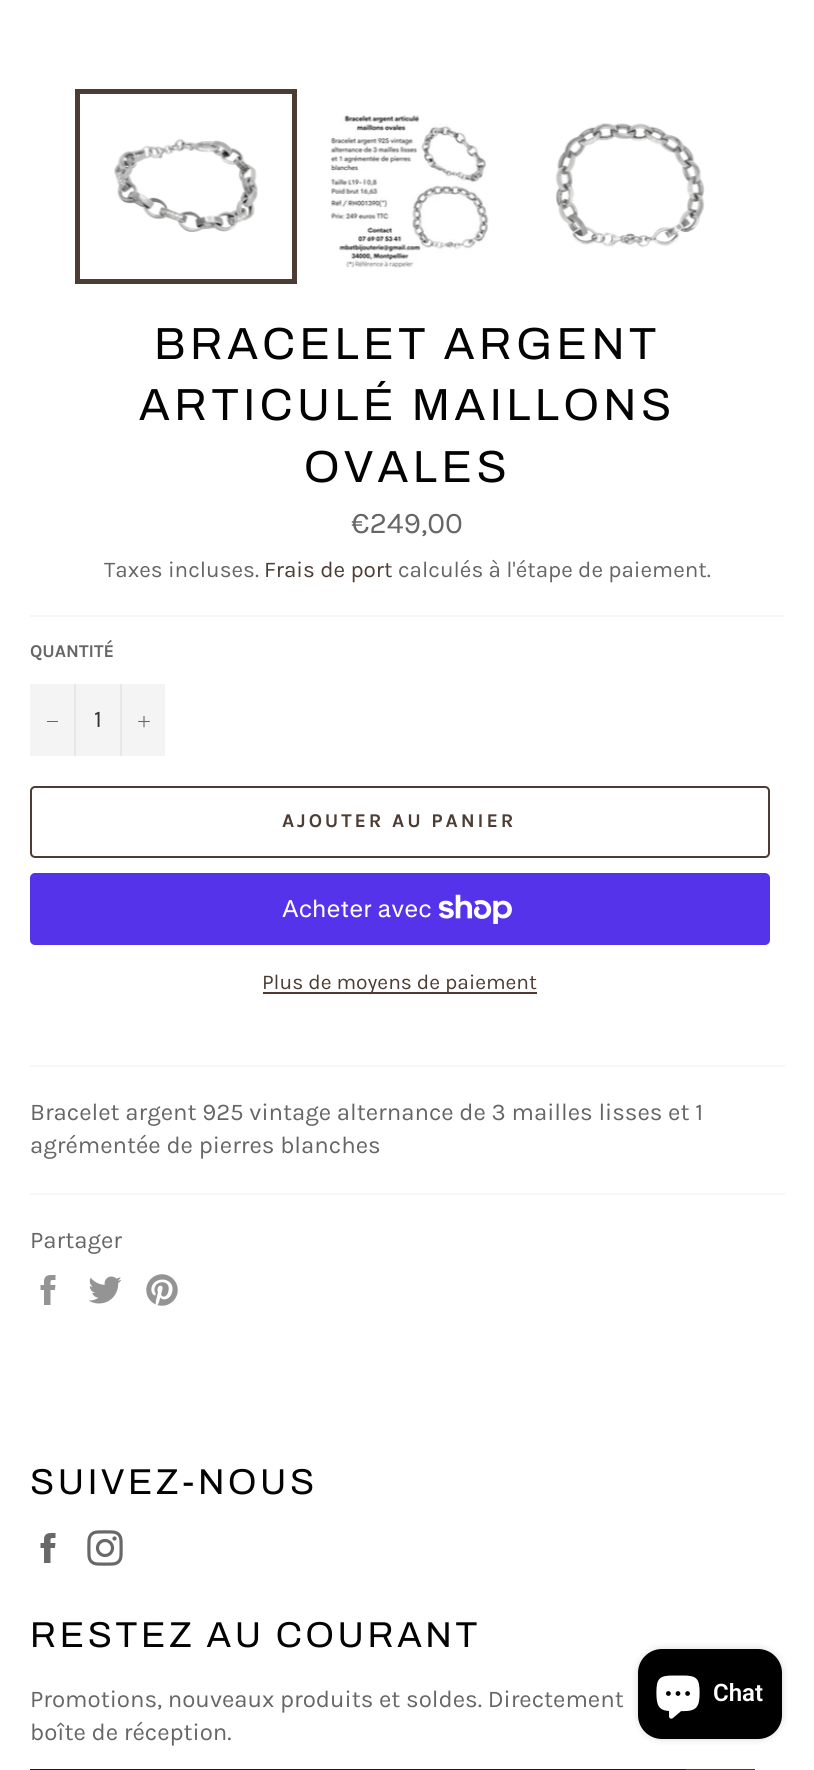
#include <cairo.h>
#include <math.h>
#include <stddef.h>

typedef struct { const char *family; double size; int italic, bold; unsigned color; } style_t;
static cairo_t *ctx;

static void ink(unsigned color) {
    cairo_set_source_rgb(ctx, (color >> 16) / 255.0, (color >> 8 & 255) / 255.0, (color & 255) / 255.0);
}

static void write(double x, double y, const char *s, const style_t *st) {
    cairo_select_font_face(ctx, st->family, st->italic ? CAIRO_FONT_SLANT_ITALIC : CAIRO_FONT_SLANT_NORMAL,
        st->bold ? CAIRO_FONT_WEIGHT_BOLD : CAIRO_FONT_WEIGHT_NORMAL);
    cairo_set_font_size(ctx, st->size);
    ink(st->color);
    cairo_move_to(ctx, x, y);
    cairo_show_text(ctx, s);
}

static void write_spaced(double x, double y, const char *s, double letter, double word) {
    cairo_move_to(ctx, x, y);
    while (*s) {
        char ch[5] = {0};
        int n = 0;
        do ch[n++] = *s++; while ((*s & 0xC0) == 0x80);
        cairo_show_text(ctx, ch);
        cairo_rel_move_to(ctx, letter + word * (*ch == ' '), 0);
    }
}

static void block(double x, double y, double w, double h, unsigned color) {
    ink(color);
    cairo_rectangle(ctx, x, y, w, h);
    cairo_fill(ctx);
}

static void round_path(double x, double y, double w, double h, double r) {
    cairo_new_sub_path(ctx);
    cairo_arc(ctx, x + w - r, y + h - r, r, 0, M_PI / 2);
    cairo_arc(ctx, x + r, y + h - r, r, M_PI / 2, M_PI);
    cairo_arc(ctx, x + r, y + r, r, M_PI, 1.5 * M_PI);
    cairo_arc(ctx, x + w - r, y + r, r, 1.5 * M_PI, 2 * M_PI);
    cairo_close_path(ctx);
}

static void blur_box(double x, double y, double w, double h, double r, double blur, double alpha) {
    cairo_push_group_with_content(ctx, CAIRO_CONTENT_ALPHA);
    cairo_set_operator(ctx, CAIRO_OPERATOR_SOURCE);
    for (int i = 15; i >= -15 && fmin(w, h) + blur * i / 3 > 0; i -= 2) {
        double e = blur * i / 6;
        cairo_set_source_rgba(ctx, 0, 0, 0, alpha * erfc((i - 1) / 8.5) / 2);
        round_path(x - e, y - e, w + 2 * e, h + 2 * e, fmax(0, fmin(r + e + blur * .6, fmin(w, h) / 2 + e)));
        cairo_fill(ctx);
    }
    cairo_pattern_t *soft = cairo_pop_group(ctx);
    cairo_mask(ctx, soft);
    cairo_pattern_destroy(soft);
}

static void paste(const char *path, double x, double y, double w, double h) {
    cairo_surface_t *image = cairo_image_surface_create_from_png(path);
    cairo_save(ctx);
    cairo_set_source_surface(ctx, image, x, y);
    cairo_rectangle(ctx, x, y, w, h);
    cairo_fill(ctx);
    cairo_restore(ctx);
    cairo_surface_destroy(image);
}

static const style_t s1 = {"Karla", 30, 0, 0, 0x666666};
static const style_t s2 = {"Karla", 22.5, 0, 0, 0x666666};
static const style_t s3 = {"Karla", 22.5, 0, 0, 0x4d3c33};
static const style_t s4 = {"Karla", 18, 0, 1, 0x666666};
static const style_t s5 = {"Karla", 24, 0, 0, 0x333333};
static const style_t s6 = {"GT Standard", 24, 0, 0, 0xffffff};
static const style_t s7 = {"Karla", 21, 0, 0, 0x4d3c33};
static const style_t s8 = {"Karla", 24, 0, 0, 0x666666};
static const style_t s9 = {"Roboto SemiBold", 24, 0, 0, 0xffffff};

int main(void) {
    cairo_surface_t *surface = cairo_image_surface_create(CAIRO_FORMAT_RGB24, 814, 1770);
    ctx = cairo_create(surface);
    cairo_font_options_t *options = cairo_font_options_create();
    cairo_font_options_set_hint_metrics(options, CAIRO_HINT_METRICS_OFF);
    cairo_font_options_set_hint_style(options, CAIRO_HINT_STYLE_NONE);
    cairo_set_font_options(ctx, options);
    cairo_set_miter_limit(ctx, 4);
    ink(0xffffff);
    cairo_paint(ctx);
    paste("pic1.png", 114, 139, 144, 93);
    cairo_rectangle(ctx, 77.5, 91.5, 217, 190);
    ink(0x4d3c33);
    cairo_set_line_width(ctx, 5);
    cairo_stroke(ctx);
    paste("pic2.png", 330, 115, 159, 153);
    paste("pic3.png", 555, 123, 150, 125);
    cairo_select_font_face(ctx, "Archivo", CAIRO_FONT_SLANT_NORMAL, CAIRO_FONT_WEIGHT_NORMAL);
    cairo_set_font_size(ctx, 45);
    ink(0x030303);
    write_spaced(154, 359, "BRACELET ARGENT", 4.5, 0);
    write_spaced(139, 420, "ARTICULÉ MAILLONS", 4.5, 0);
    write_spaced(304, 482, "OVALES", 4.5, 0);
    write(351, 533, "€249,00", &s1);
    write(104, 577, "Taxes incluses.", &s2);
    write(264, 577, "Frais de port", &s3);
    write(398, 577, "calculés à l'étape de paiement.", &s2);
    block(30, 615, 755, 2, 0xf7f7f7);
    write(30, 657, "QUANTITÉ", &s4);
    block(30, 684, 135, 72, 0xf4f4f4);
    block(74, 684, 2, 72, 0xe7e7e7);
    block(47, 721, 11, 1, 0x666666);
    write(94, 727, "1", &s5);
    block(120, 684, 2, 72, 0xe7e7e7);
    paste("pic4.png", 138, 716, 12, 12);
    round_path(31, 787, 738, 70, 4);
    ink(0x4d3c33);
    cairo_set_line_width(ctx, 2);
    cairo_stroke(ctx);
    cairo_select_font_face(ctx, "Karla", CAIRO_FONT_SLANT_NORMAL, CAIRO_FONT_WEIGHT_BOLD);
    cairo_set_font_size(ctx, 19.5);
    write_spaced(282, 827, "AJOUTER AU PANIER", 2.9, 0);
    ink(0x5433eb);
    round_path(30, 873, 740, 72, 5);
    cairo_fill(ctx);
    write(282, 917, "Acheter avec", &s6);
    paste("pic5.png", 438, 894, 74, 30);
    block(263, 992, 274, 2, 0x4d3c33);
    write(262, 989, "Plus de moyens de paiement", &s7);
    block(30, 1065, 755, 2, 0xf7f7f7);
    write(30, 1120, "Bracelet argent 925 vintage alternance de 3 mailles lisses et 1", &s8);
    write(30, 1153, "agrémentée de pierres blanches", &s8);
    block(30, 1193, 755, 2, 0xf7f7f7);
    write(30, 1248, "Partager", &s8);
    paste("pic6.png", 40, 1275, 16, 30);
    paste("pic7.png", 88, 1276, 34, 28);
    paste("pic8.png", 146, 1274, 32, 32);
    cairo_select_font_face(ctx, "Archivo", CAIRO_FONT_SLANT_NORMAL, CAIRO_FONT_WEIGHT_NORMAL);
    cairo_set_font_size(ctx, 36);
    ink(0x030303);
    write_spaced(30, 1494, "SUIVEZ-NOUS", 3.6, 0);
    paste("pic9.png", 40, 1533, 16, 30);
    paste("pic10.png", 87, 1530, 36, 36);
    write_spaced(30, 1647, "RESTEZ AU COURANT", 3.6, 0);
    write(30, 1707, "Promotions, nouveaux produits et soldes. Directement", &s8);
    write(30, 1740, "boîte de réception.", &s8);
    block(30, 1769, 656, 1, 0x1a1a1a);
    block(686, 1769, 69, 1, 0x4d3c33);
    ink(0x000000);
    blur_box(638, 1649, 144, 90, 24, 4, 0.15);
    ink(0x000000);
    round_path(638, 1649, 144, 90, 24);
    cairo_fill(ctx);
    paste("pic11.png", 656, 1675, 44, 44);
    write(713, 1701, "Chat", &s9);
    cairo_surface_write_to_png(surface, "screenshot.png");
    cairo_font_options_destroy(options);
    cairo_destroy(ctx);
    cairo_surface_destroy(surface);
    return 0;
}
